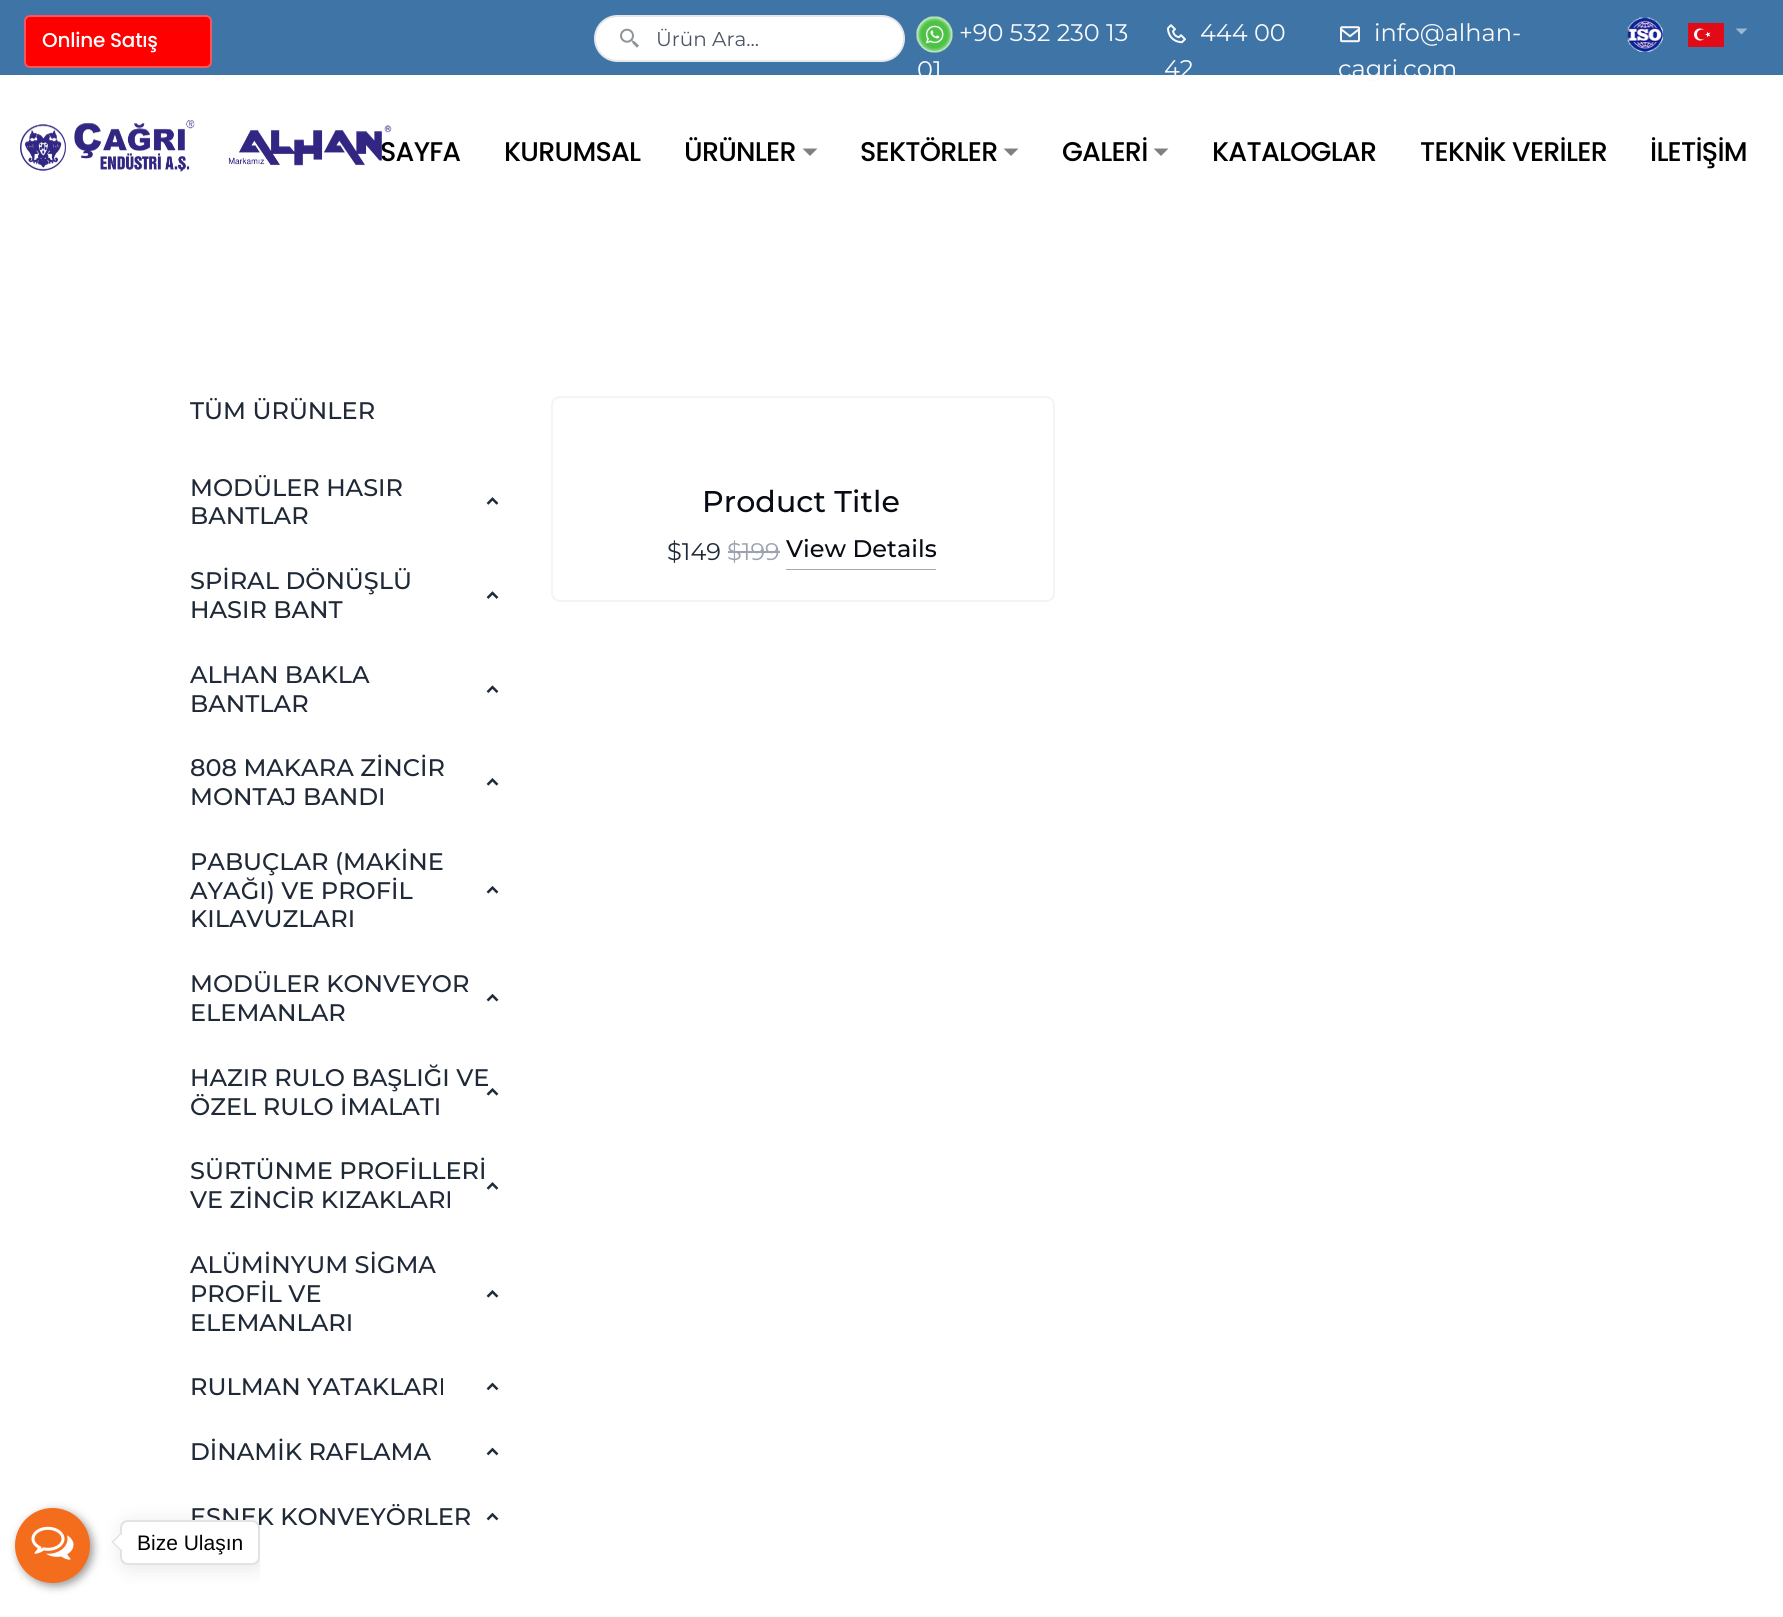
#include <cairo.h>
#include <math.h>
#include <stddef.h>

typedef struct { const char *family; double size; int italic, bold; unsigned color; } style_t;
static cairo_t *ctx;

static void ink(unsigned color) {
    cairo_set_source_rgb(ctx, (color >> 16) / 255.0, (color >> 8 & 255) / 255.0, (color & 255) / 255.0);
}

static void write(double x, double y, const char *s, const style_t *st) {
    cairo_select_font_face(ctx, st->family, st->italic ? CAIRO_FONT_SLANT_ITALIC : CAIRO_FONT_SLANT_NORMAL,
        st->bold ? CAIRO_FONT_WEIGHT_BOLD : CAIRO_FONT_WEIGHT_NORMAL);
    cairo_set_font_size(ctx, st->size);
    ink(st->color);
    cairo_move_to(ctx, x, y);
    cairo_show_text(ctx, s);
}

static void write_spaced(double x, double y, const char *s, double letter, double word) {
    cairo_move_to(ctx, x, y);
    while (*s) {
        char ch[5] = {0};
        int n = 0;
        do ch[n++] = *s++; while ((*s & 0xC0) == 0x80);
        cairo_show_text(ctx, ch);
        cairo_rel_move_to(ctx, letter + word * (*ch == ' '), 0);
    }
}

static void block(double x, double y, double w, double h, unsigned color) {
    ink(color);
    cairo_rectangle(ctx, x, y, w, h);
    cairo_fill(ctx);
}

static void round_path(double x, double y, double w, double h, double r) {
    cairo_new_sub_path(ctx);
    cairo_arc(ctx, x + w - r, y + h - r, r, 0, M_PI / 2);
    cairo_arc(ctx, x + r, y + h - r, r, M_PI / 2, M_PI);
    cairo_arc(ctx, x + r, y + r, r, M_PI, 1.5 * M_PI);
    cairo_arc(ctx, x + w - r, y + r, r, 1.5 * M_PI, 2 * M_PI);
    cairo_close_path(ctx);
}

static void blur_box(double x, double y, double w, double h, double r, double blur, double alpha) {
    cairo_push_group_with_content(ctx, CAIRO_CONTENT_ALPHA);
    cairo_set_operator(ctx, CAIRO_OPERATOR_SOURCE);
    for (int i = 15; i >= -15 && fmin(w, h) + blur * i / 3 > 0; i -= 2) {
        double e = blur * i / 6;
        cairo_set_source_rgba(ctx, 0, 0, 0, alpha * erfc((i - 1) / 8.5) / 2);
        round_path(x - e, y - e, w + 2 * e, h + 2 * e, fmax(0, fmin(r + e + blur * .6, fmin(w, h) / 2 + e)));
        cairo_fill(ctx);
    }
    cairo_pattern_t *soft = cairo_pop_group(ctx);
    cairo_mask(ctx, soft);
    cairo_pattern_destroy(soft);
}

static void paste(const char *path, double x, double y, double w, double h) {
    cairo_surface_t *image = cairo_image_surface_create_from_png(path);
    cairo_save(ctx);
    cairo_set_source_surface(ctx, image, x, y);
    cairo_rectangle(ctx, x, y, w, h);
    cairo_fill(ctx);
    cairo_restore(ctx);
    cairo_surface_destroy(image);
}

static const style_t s1 = {"Montserrat", 20, 0, 0, 0x4b5563};
static const style_t s2 = {"Montserrat", 24, 0, 0, 0xf9fafb};
static const style_t s3 = {"Montserrat Medium", 24, 0, 0, 0x1f2937};
static const style_t s4 = {"Montserrat", 24, 0, 0, 0x1f2937};
static const style_t s5 = {"Montserrat", 24, 0, 0, 0x9ca3af};
static const style_t s6 = {"Montserrat Medium", 24, 0, 0, 0x080b13};
static const style_t s7 = {"Liberation Sans", 21, 0, 0, 0x000000};

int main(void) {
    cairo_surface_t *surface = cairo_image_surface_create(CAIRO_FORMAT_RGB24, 1783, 1617);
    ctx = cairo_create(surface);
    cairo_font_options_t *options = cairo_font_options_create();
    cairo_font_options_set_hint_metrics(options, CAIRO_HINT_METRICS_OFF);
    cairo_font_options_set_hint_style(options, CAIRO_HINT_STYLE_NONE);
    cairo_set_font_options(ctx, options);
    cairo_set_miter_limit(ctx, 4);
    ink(0xffffff);
    cairo_paint(ctx);
    block(0, 0, 1783, 75, 0x3f74a6);
    ink(0xff0000);
    round_path(25, 16, 186, 51, 5);
    cairo_fill_preserve(ctx);
    ink(0xf65660);
    cairo_stroke(ctx);
    cairo_select_font_face(ctx, "Poppins Medium", CAIRO_FONT_SLANT_NORMAL, CAIRO_FONT_WEIGHT_NORMAL);
    cairo_set_font_size(ctx, 20);
    ink(0xffffff);
    write_spaced(42, 47, "Online Satış", -0.25, 0);
    round_path(595, 16, 309, 45, 22.5);
    cairo_fill_preserve(ctx);
    ink(0xe5e7eb);
    cairo_stroke(ctx);
    paste("pic1.png", 620, 28, 19, 20);
    write(656, 46, "Ürün Ara...", &s1);
    paste("pic2.png", 916, 16, 37, 37);
    write(959, 41, "+90 532 230 13", &s2);
    write(917, 78, "01", &s2);
    paste("pic3.png", 1167, 24, 19, 20);
    write(1200, 41, "444 00", &s2);
    write(1164, 77, "42", &s2);
    paste("pic4.png", 1340, 26, 20, 17);
    write(1374, 41, "info@alhan-", &s2);
    write(1338, 77, "cagri.com", &s2);
    paste("pic5.png", 1627, 17, 36, 35);
    block(1688, 23, 36, 24, 0xe30a17);
    ink(0xffffff);
    cairo_arc(ctx, 1700, 34.5, 6, 0, 2 * M_PI);
    cairo_fill(ctx);
    ink(0x9cb7d1);
    cairo_new_path(ctx);
    cairo_move_to(ctx, 1735.5, 28.5);
    cairo_line_to(ctx, 1747.5, 28.5);
    cairo_line_to(ctx, 1741.5, 34.5);
    cairo_close_path(ctx);
    cairo_fill(ctx);
    ink(0xe30a17);
    cairo_arc(ctx, 1702, 34.5, 5, 0, 2 * M_PI);
    cairo_fill(ctx);
    ink(0xffffff);
    cairo_new_path(ctx);
    cairo_move_to(ctx, 1705, 34.5);
    cairo_line_to(ctx, 1710.5, 36.5);
    cairo_line_to(ctx, 1707, 31.5);
    cairo_line_to(ctx, 1707, 37.5);
    cairo_line_to(ctx, 1710.5, 32.5);
    cairo_close_path(ctx);
    cairo_fill(ctx);
    cairo_select_font_face(ctx, "Poppins Medium", CAIRO_FONT_SLANT_NORMAL, CAIRO_FONT_WEIGHT_NORMAL);
    cairo_set_font_size(ctx, 27);
    ink(0x000000);
    write_spaced(380, 161, "SAYFA", -0.75, 0);
    paste("pic6.png", 20, 119, 372, 53);
    write_spaced(504, 161, "KURUMSAL", -0.75, 0);
    write_spaced(684, 161, "ÜRÜNLER", -0.75, 0);
    ink(0x808080);
    cairo_new_path(ctx);
    cairo_move_to(ctx, 802.5, 148.5);
    cairo_line_to(ctx, 817.5, 148.5);
    cairo_line_to(ctx, 810, 156);
    cairo_close_path(ctx);
    cairo_fill(ctx);
    ink(0x000000);
    write_spaced(860, 161, "SEKTÖRLER", -0.75, 0);
    ink(0x808080);
    cairo_new_path(ctx);
    cairo_move_to(ctx, 1003.5, 148.5);
    cairo_line_to(ctx, 1018.5, 148.5);
    cairo_line_to(ctx, 1011, 156);
    cairo_close_path(ctx);
    cairo_fill(ctx);
    ink(0x000000);
    write_spaced(1062, 161, "GALERİ", -0.75, 0);
    ink(0x808080);
    cairo_new_path(ctx);
    cairo_move_to(ctx, 1153.5, 148.5);
    cairo_line_to(ctx, 1168.5, 148.5);
    cairo_line_to(ctx, 1161, 156);
    cairo_close_path(ctx);
    cairo_fill(ctx);
    ink(0x000000);
    write_spaced(1212, 161, "KATALOGLAR", -0.75, 0);
    write_spaced(1420, 161, "TEKNİK VERİLER", -0.75, 0);
    write_spaced(1650, 161, "İLETİŞİM", -0.75, 0);
    write(190, 419, "TÜM ÜRÜNLER", &s3);
    write(190, 496, "MODÜLER HASIR", &s3);
    paste("pic7.png", 486, 497, 13, 8);
    write(190, 524, "BANTLAR", &s3);
    write(190, 589, "SPİRAL DÖNÜŞLÜ", &s3);
    paste("pic8.png", 486, 591, 13, 8);
    write(190, 618, "HASIR BANT", &s3);
    write(190, 683, "ALHAN BAKLA", &s3);
    paste("pic9.png", 486, 685, 13, 8);
    write(190, 712, "BANTLAR", &s3);
    write(190, 776, "808 MAKARA ZİNCİR", &s3);
    paste("pic10.png", 486, 778, 13, 8);
    write(190, 805, "MONTAJ BANDI", &s3);
    write(190, 870, "PABUÇLAR (MAKİNE", &s3);
    write(190, 899, "AYAĞI) VE PROFİL", &s3);
    paste("pic11.png", 486, 886, 13, 8);
    write(190, 927, "KILAVUZLARI", &s3);
    write(190, 992, "MODÜLER KONVEYOR", &s3);
    paste("pic12.png", 486, 993, 13, 9);
    write(190, 1021, "ELEMANLAR", &s3);
    write(190, 1086, "HAZIR RULO BAŞLIĞI VE", &s3);
    paste("pic13.png", 486, 1088, 13, 8);
    write(190, 1115, "ÖZEL RULO İMALATI", &s3);
    write(190, 1179, "SÜRTÜNME PROFİLLERİ", &s3);
    write(190, 1208, "VE ZİNCİR KIZAKLARI", &s3);
    paste("pic14.png", 486, 1182, 13, 8);
    write(190, 1273, "ALÜMİNYUM SİGMA", &s3);
    write(190, 1302, "PROFİL VE", &s3);
    paste("pic15.png", 486, 1290, 13, 8);
    write(190, 1331, "ELEMANLARI", &s3);
    write(190, 1395, "RULMAN YATAKLARI", &s3);
    paste("pic16.png", 486, 1382, 13, 9);
    write(190, 1460, "DİNAMİK RAFLAMA", &s3);
    paste("pic17.png", 486, 1447, 13, 9);
    write(190, 1525, "ESNEK KONVEYÖRLER", &s3);
    paste("pic18.png", 486, 1512, 13, 9);
    round_path(552, 397, 502, 204, 8);
    ink(0xf3f4f6);
    cairo_stroke(ctx);
    cairo_set_font_size(ctx, 30);
    ink(0x080b13);
    write_spaced(702, 512, "Product Title", 0.1, 0);
    write(667, 560, "$149", &s4);
    write(727, 560, "$199", &s5);
    block(728, 551, 52, 2, 0x9ca3af);
    write(786, 557, "View Details", &s6);
    block(786, 569, 150, 1, 0xa9aaac);
    ink(0x000000);
    blur_box(18, 1511, 75, 75, 37.5, 4.5, 0.4);
    ink(0xf46d1d);
    cairo_arc(ctx, 52.5, 1545.5, 37.5, 0, 2 * M_PI);
    cairo_fill(ctx);
    paste("pic19.png", 31, 1526, 43, 34);
    cairo_save(ctx);
    cairo_rectangle(ctx, 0, 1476, 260, 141);
    cairo_clip(ctx);
    ink(0x000000);
    blur_box(123, 1523, 140, 45, 8, 10, 0.1);
    cairo_restore(ctx);
    ink(0xffffff);
    round_path(121, 1521, 138, 43, 7);
    cairo_fill_preserve(ctx);
    ink(0xe2e2e2);
    cairo_stroke(ctx);
    ink(0xffffff);
    cairo_new_path(ctx);
    cairo_move_to(ctx, 128.5, 1542);
    cairo_line_to(ctx, 120, 1550.5);
    cairo_line_to(ctx, 111.5, 1542);
    cairo_line_to(ctx, 120, 1533.5);
    cairo_close_path(ctx);
    cairo_fill(ctx);
    ink(0xe2e2e2);
    cairo_new_path(ctx);
    cairo_move_to(ctx, 121, 1549.5);
    cairo_line_to(ctx, 120, 1550.5);
    cairo_line_to(ctx, 111.5, 1542);
    cairo_line_to(ctx, 112.5, 1541);
    cairo_close_path(ctx);
    cairo_fill(ctx);
    cairo_new_path(ctx);
    cairo_move_to(ctx, 121, 1534.5);
    cairo_line_to(ctx, 112.5, 1543);
    cairo_line_to(ctx, 111.5, 1542);
    cairo_line_to(ctx, 120, 1533.5);
    cairo_close_path(ctx);
    cairo_fill(ctx);
    write(137, 1550, "Bize Ulaşın", &s7);
    cairo_surface_write_to_png(surface, "screenshot.png");
    cairo_font_options_destroy(options);
    cairo_destroy(ctx);
    cairo_surface_destroy(surface);
    return 0;
}
